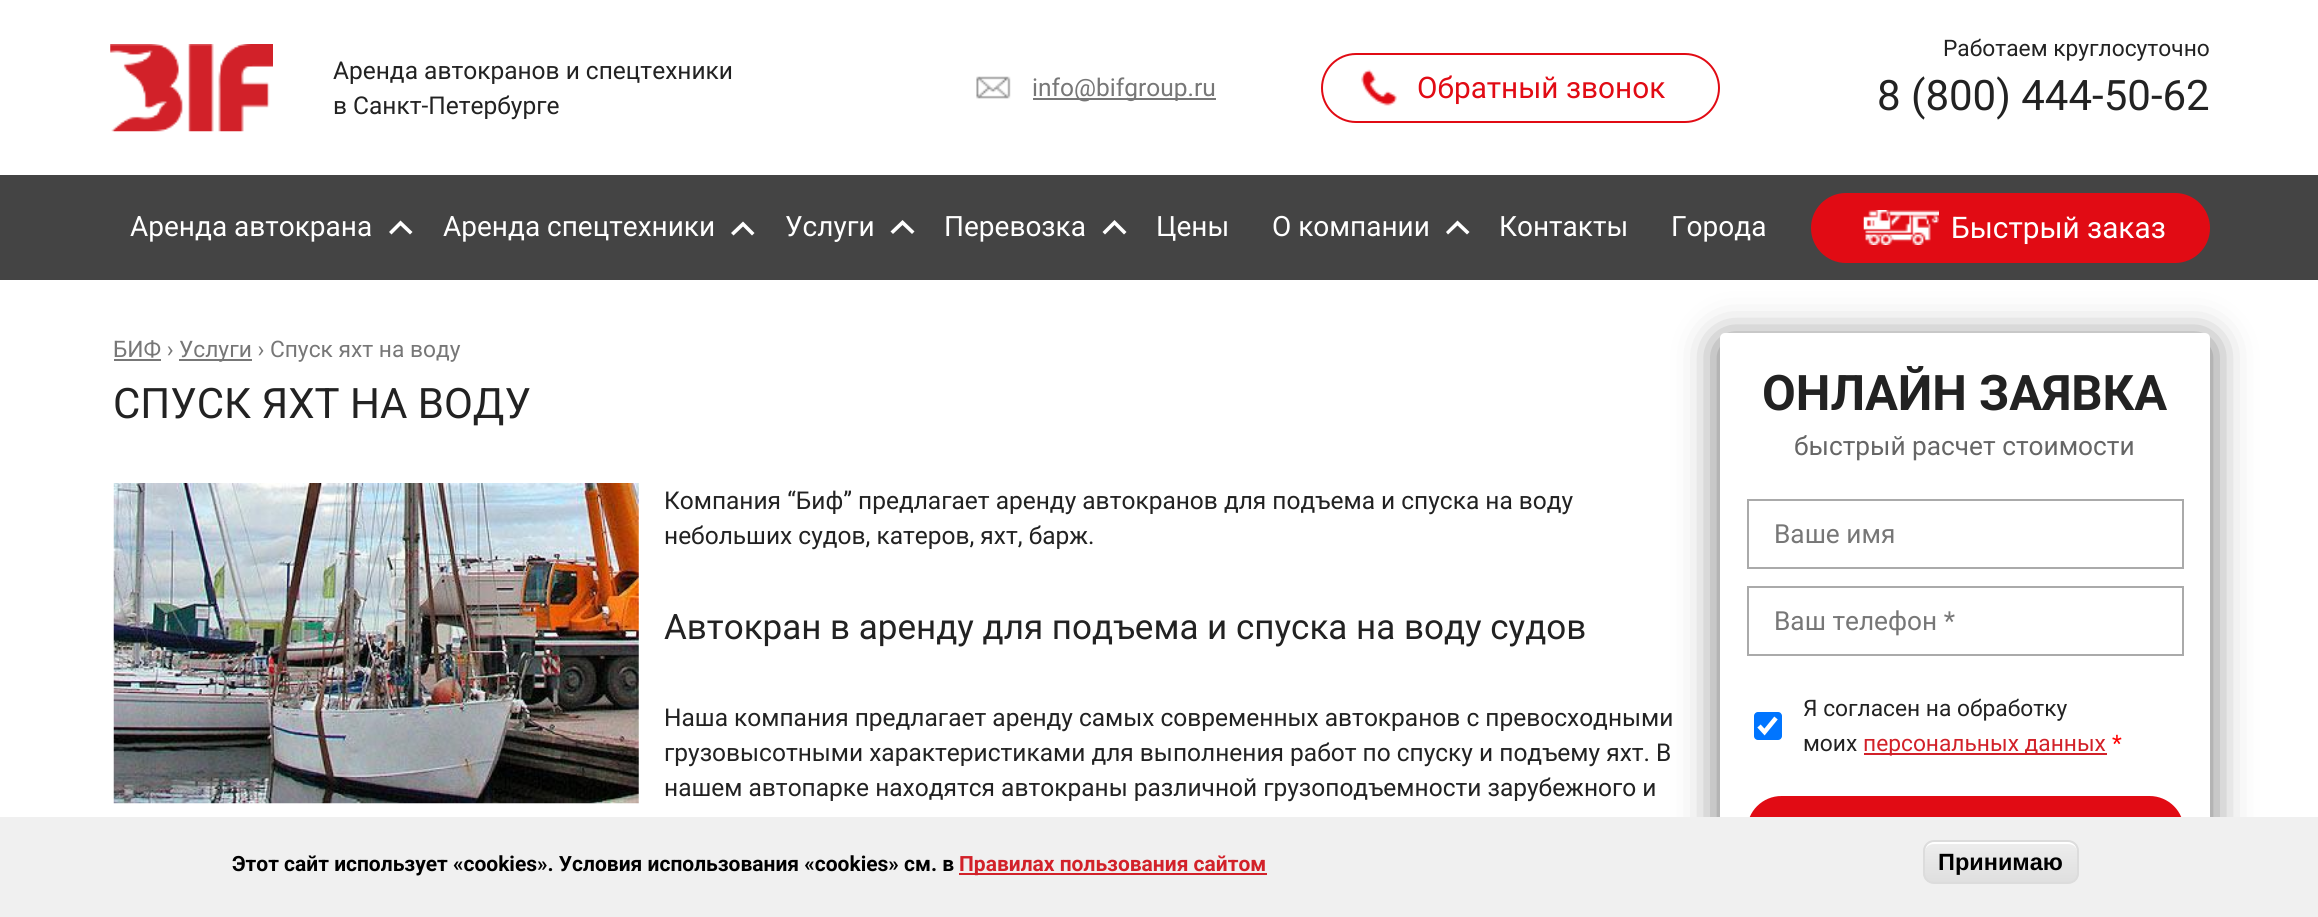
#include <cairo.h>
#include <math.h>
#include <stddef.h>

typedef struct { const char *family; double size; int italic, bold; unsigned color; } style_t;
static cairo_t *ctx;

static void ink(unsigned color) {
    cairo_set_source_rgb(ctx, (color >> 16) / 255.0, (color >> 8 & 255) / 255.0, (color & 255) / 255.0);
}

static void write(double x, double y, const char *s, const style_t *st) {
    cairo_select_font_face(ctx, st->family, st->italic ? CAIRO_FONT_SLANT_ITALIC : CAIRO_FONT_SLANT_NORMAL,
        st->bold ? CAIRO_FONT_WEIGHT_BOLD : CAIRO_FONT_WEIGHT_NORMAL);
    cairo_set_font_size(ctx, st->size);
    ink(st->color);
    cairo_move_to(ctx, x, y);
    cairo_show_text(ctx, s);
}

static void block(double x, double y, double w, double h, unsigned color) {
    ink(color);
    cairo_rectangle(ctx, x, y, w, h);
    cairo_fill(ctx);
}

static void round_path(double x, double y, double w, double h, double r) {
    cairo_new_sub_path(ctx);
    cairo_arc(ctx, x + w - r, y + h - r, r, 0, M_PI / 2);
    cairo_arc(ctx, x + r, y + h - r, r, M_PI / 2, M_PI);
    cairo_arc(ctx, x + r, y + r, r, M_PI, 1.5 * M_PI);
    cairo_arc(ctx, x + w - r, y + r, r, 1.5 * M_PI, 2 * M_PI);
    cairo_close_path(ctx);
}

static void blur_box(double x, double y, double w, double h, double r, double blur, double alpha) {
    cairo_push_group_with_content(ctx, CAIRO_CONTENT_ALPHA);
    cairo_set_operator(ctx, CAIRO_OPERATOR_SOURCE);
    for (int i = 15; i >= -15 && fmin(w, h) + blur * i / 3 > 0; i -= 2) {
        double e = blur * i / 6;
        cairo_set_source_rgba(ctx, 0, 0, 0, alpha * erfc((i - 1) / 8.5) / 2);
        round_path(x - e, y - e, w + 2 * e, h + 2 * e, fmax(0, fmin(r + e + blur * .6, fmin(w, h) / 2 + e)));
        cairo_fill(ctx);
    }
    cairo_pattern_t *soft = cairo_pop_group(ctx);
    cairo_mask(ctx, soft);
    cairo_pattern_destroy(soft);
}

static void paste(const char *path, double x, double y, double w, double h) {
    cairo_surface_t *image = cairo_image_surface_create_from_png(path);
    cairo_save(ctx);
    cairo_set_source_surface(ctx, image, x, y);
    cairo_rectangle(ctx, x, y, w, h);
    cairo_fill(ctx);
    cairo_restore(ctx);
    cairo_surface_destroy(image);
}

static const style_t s1 = {"Roboto", 24.5, 0, 0, 0x222222};
static const style_t s2 = {"Roboto", 24.5, 0, 0, 0x777777};
static const style_t s3 = {"Roboto", 29.75, 0, 0, 0xe10b14};
static const style_t s4 = {"Roboto", 22.75, 0, 0, 0x222222};
static const style_t s5 = {"Roboto", 42, 0, 0, 0x222222};
static const style_t s6 = {"Roboto", 28, 0, 0, 0xffffff};
static const style_t s7 = {"Roboto", 29.75, 0, 0, 0xffffff};
static const style_t s8 = {"Roboto", 22.75, 0, 0, 0x777777};
static const style_t s9 = {"Roboto", 35, 0, 0, 0x222222};
static const style_t s10 = {"Roboto", 49, 0, 1, 0x222222};
static const style_t s11 = {"Roboto", 26.25, 0, 0, 0x666666};
static const style_t s12 = {"Roboto", 26.25, 0, 0, 0x777777};
static const style_t s13 = {"Roboto", 22.75, 0, 0, 0xd22129};
static const style_t s14 = {"Roboto", 22.75, 0, 0, 0xff0000};
static const style_t s15 = {"Roboto", 21, 0, 1, 0x000000};
static const style_t s16 = {"Roboto", 21, 0, 1, 0xd22129};
static const style_t s17 = {"Liberation Sans", 23.5, 0, 1, 0x000000};

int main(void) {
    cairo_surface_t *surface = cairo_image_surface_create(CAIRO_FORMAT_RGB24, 2318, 917);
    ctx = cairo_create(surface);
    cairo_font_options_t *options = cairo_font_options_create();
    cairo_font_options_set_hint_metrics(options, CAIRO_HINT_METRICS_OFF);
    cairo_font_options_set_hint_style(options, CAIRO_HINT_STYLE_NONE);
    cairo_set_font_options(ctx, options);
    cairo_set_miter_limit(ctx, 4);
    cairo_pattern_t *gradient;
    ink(0xffffff);
    cairo_paint(ctx);
    paste("pic1.png", 110, 44, 163, 88);
    write(333, 79, "Аренда автокранов и спецтехники", &s1);
    write(333, 114, "в Санкт-Петербурге", &s1);
    paste("pic2.png", 976, 76, 35, 23);
    block(1033, 98, 183, 2, 0x777777);
    write(1032, 96, "info@bifgroup.ru", &s2);
    paste("pic3.png", 1361, 69, 36, 37);
    round_path(1322, 54, 397, 68, 34);
    ink(0xe10b14);
    cairo_stroke(ctx);
    write(1417, 98, "Обратный звонок", &s3);
    write(1943, 56, "Работаем круглосуточно", &s4);
    write(1877, 110, "8 (800) 444-50-62", &s5);
    block(0, 175, 2318, 105, 0x444444);
    write(130, 236, "Аренда автокрана", &s6);
    cairo_new_path(ctx);
    cairo_move_to(ctx, 389, 232);
    cairo_line_to(ctx, 391.5, 234.5);
    cairo_line_to(ctx, 400.5, 225.5);
    cairo_line_to(ctx, 410, 234.5);
    cairo_line_to(ctx, 412.5, 232);
    cairo_line_to(ctx, 400.5, 220.5);
    cairo_close_path(ctx);
    cairo_fill(ctx);
    write(443, 236, "Аренда спецтехники", &s6);
    cairo_new_path(ctx);
    cairo_move_to(ctx, 731, 233);
    cairo_line_to(ctx, 733.5, 235.5);
    cairo_line_to(ctx, 743, 226.5);
    cairo_line_to(ctx, 752, 235.5);
    cairo_line_to(ctx, 754.5, 233);
    cairo_line_to(ctx, 743, 221.5);
    cairo_close_path(ctx);
    cairo_fill(ctx);
    write(785, 236, "Услуги", &s6);
    cairo_new_path(ctx);
    cairo_move_to(ctx, 890.5, 231.5);
    cairo_line_to(ctx, 893, 234);
    cairo_line_to(ctx, 902.5, 225);
    cairo_line_to(ctx, 912, 234);
    cairo_line_to(ctx, 914.5, 231.5);
    cairo_line_to(ctx, 902.5, 220);
    cairo_close_path(ctx);
    cairo_fill(ctx);
    write(944, 236, "Перевозка", &s6);
    cairo_new_path(ctx);
    cairo_move_to(ctx, 1102.5, 232);
    cairo_line_to(ctx, 1105, 234.5);
    cairo_line_to(ctx, 1114.5, 225);
    cairo_line_to(ctx, 1124, 234.5);
    cairo_line_to(ctx, 1126.5, 232);
    cairo_line_to(ctx, 1114.5, 220);
    cairo_close_path(ctx);
    cairo_fill(ctx);
    write(1156, 236, "Цены", &s6);
    write(1272, 236, "О компании", &s6);
    cairo_new_path(ctx);
    cairo_move_to(ctx, 1446, 232);
    cairo_line_to(ctx, 1448, 234.5);
    cairo_line_to(ctx, 1457.5, 225.5);
    cairo_line_to(ctx, 1467, 234.5);
    cairo_line_to(ctx, 1469.5, 232);
    cairo_line_to(ctx, 1457.5, 220.5);
    cairo_close_path(ctx);
    cairo_fill(ctx);
    write(1499, 236, "Контакты", &s6);
    write(1671, 236, "Города", &s6);
    ink(0xe10b14);
    round_path(1811, 193, 399, 70, 35);
    cairo_fill(ctx);
    paste("pic4.png", 1863, 210, 76, 35);
    write(1951, 238, "Быстрый заказ", &s7);
    write(113, 357, "БИФ ›", &s8);
    block(114, 359, 47, 2, 0x777777);
    block(179, 359, 73, 2, 0x777777);
    write(179, 357, "Услуги › Спуск яхт на воду", &s8);
    write(113, 418, "СПУСК ЯХТ НА ВОДУ", &s5);
    paste("pic5.png", 113, 483, 526, 321);
    write(664, 509, "Компания “Биф” предлагает аренду автокранов для подъема и спуска на воду", &s1);
    write(664, 544, "небольших судов, катеров, яхт, барж.", &s1);
    write(664, 639, "Автокран в аренду для подъема и спуска на воду судов", &s9);
    write(664, 726, "Наша компания предлагает аренду самых современных автокранов с превосходными", &s1);
    write(664, 761, "грузовысотными характеристиками для выполнения работ по спуску и подъему яхт. В", &s1);
    write(664, 796, "нашем автопарке находятся автокраны различной грузоподъемности зарубежного и", &s1);
    ink(0x000000);
    blur_box(1720, 341, 490, 567, 5, 20, 0.59);
    ink(0xffffff);
    round_path(1720, 333, 490, 567, 5);
    cairo_fill(ctx);
    write(1762, 410, "ОНЛАЙН ЗАЯВКА", &s10);
    write(1794, 455, "быстрый расчет стоимости", &s11);
    cairo_rectangle(ctx, 1748, 500, 435, 68);
    ink(0xaaaaaa);
    cairo_stroke(ctx);
    write(1774, 543, "Ваше имя", &s12);
    cairo_rectangle(ctx, 1748, 587, 435, 68);
    ink(0xaaaaaa);
    cairo_stroke(ctx);
    write(1774, 630, "Ваш телефон *", &s12);
    ink(0x0075ff);
    round_path(1754, 712, 28, 28, 4);
    cairo_fill(ctx);
    cairo_new_path(ctx);
    cairo_move_to(ctx, 1759, 726);
    cairo_line_to(ctx, 1764.5, 732);
    cairo_line_to(ctx, 1776, 718);
    ink(0xffffff);
    cairo_set_line_width(ctx, 4.5);
    cairo_stroke(ctx);
    write(1803, 716, "Я согласен на обработку", &s4);
    write(1803, 751, "моих", &s4);
    block(1864, 753, 243, 2, 0xd22129);
    write(1863, 751, "персональных данных", &s13);
    write(2112, 751, "*", &s14);
    ink(0xe10b14);
    round_path(1747, 796, 437, 69, 34.5);
    cairo_fill(ctx);
    block(0, 817, 2318, 100, 0xf0f0f0);
    write(232, 871, "Этот сайт использует «cookies». Условия использования «cookies» см. в", &s15);
    block(959, 873, 308, 2, 0xd22129);
    write(959, 871, "Правилах пользования сайтом", &s16);
    cairo_save(ctx);
    round_path(1923, 840, 156, 44, 11);
    cairo_clip(ctx);
    gradient = cairo_pattern_create_linear(2001, 842, 2001, 882);
    cairo_pattern_add_color_stop_rgba(gradient, 0.05, 0.929, 0.929, 0.929, 1);
    cairo_pattern_add_color_stop_rgba(gradient, 1, 0.875, 0.875, 0.875, 1);
    cairo_set_source(ctx, gradient);
    cairo_pattern_destroy(gradient);
    cairo_rectangle(ctx, 1923, 842, 156, 40);
    cairo_fill(ctx);
    cairo_restore(ctx);
    ink(0xffffff);
    cairo_new_path(ctx);
    cairo_move_to(ctx, 1934, 844);
    cairo_line_to(ctx, 2068, 844);
    cairo_curve_to(ctx, 2073, 844, 2077, 847, 2077, 852);
    cairo_curve_to(ctx, 2077, 836, 2054, 842, 2046, 842);
    cairo_line_to(ctx, 1956, 842);
    cairo_curve_to(ctx, 1948, 842, 1925, 836, 1925, 852);
    cairo_curve_to(ctx, 1925, 847, 1929, 844, 1934, 844);
    cairo_close_path(ctx);
    cairo_fill(ctx);
    round_path(1924, 841, 154, 42, 10);
    ink(0xdcdcdc);
    cairo_set_line_width(ctx, 2);
    cairo_stroke(ctx);
    write(1938, 870, "Принимаю", &s17);
    cairo_surface_write_to_png(surface, "screenshot.png");
    cairo_font_options_destroy(options);
    cairo_destroy(ctx);
    cairo_surface_destroy(surface);
    return 0;
}
